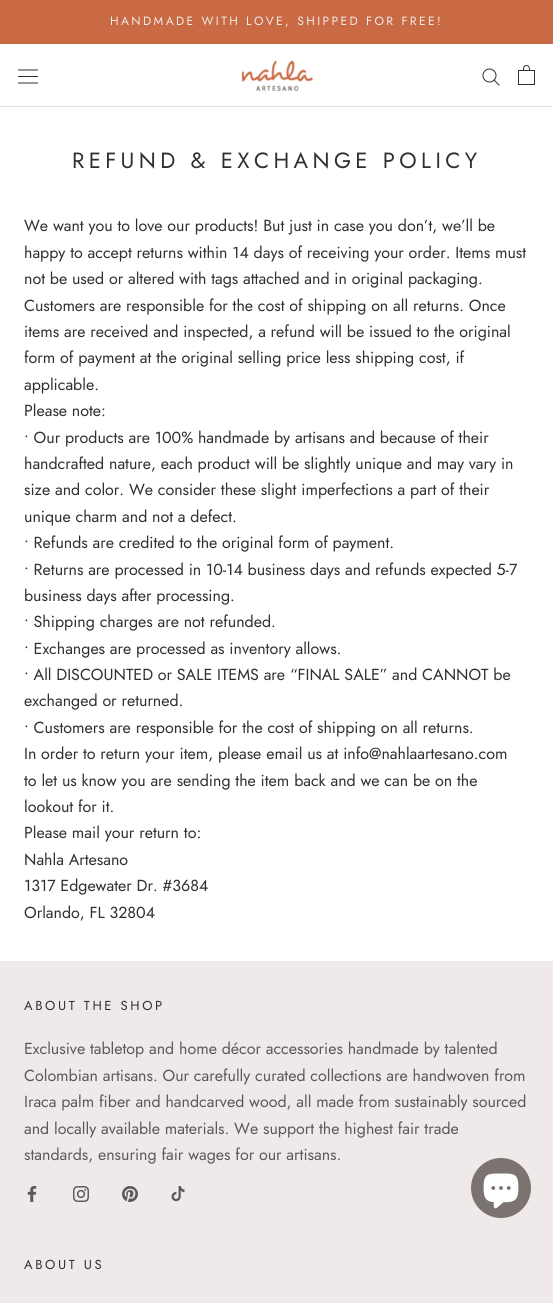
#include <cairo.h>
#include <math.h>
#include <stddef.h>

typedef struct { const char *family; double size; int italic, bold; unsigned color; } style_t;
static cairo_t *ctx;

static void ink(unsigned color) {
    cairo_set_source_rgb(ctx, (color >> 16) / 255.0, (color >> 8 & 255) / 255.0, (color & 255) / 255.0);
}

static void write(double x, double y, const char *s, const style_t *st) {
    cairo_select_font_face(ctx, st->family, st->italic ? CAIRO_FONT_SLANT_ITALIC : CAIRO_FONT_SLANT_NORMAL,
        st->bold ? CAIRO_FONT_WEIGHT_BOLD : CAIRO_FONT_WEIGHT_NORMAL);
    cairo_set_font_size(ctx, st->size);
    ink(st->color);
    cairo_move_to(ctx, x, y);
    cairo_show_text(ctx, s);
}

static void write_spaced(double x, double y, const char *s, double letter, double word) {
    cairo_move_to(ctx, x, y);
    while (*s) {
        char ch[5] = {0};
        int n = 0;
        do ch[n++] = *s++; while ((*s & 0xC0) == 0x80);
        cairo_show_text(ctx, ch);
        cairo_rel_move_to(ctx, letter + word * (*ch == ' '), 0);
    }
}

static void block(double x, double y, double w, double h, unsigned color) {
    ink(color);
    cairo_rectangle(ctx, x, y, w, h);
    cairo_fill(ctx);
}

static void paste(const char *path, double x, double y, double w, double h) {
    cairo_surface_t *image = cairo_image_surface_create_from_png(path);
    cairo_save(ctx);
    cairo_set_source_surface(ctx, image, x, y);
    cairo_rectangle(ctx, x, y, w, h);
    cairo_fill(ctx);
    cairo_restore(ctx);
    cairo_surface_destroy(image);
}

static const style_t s1 = {"Jost", 16, 0, 0, 0x303030};
static const style_t s2 = {"Jost", 16, 0, 0, 0x595959};

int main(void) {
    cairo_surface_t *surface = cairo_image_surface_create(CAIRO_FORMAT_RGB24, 553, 1303);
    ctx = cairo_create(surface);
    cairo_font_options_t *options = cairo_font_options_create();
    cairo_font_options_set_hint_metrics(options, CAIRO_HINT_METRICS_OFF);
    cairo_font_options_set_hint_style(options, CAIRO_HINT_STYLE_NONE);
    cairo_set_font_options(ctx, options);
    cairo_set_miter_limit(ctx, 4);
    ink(0xffffff);
    cairo_paint(ctx);
    block(0, 0, 553, 44, 0xca6a45);
    cairo_select_font_face(ctx, "Jost", CAIRO_FONT_SLANT_NORMAL, CAIRO_FONT_WEIGHT_NORMAL);
    cairo_set_font_size(ctx, 12);
    ink(0xefeae9);
    write_spaced(110, 25, "HANDMADE WITH LOVE, SHIPPED FOR FREE!", 2.4, 0);
    block(0, 106, 553, 1, 0xe0e0e0);
    paste("pic1.png", 18, 69, 20, 15);
    paste("pic2.png", 241, 60, 72, 32);
    cairo_new_path(ctx);
    cairo_move_to(ctx, 499, 85);
    cairo_line_to(ctx, 494, 80);
    ink(0x303030);
    cairo_set_line_width(ctx, 1);
    cairo_set_line_cap(ctx, CAIRO_LINE_CAP_SQUARE);
    cairo_stroke(ctx);
    cairo_arc(ctx, 489.5, 75.5, 6.5, 0, 2 * M_PI);
    cairo_set_line_cap(ctx, CAIRO_LINE_CAP_BUTT);
    cairo_stroke(ctx);
    paste("pic3.png", 518, 65, 17, 20);
    cairo_set_font_size(ctx, 22);
    write_spaced(72, 168, "REFUND & EXCHANGE POLICY", 4.4, 0);
    write(24, 231, "We want you to love our products! But just in case you don’t, we’ll be", &s1);
    write(24, 258, "happy to accept returns within 14 days of receiving your order. Items must", &s1);
    write(24, 284, "not be used or altered with tags attached and in original packaging.", &s1);
    write(24, 311, "Customers are responsible for the cost of shipping on all returns. Once", &s1);
    write(24, 337, "items are received and inspected, a refund will be issued to the original", &s1);
    write(24, 363, "form of payment at the original selling price less shipping cost, if", &s1);
    write(24, 390, "applicable.", &s1);
    write(24, 416, "Please note:", &s1);
    write(24, 443, "• Our products are 100% handmade by artisans and because of their", &s1);
    write(24, 469, "handcrafted nature, each product will be slightly unique and may vary in", &s1);
    write(24, 495, "size and color. We consider these slight imperfections a part of their", &s1);
    write(24, 522, "unique charm and not a defect.", &s1);
    write(24, 548, "• Refunds are credited to the original form of payment.", &s1);
    write(24, 575, "• Returns are processed in 10-14 business days and refunds expected 5-7", &s1);
    write(24, 601, "business days after processing.", &s1);
    write(24, 627, "• Shipping charges are not refunded.", &s1);
    write(24, 654, "• Exchanges are processed as inventory allows.", &s1);
    write(24, 680, "• All DISCOUNTED or SALE ITEMS are “FINAL SALE” and CANNOT be", &s1);
    write(24, 706, "exchanged or returned.", &s1);
    write(24, 733, "• Customers are responsible for the cost of shipping on all returns.", &s1);
    write(24, 759, "In order to return your item, please email us at info@nahlaartesano.com", &s1);
    write(24, 786, "to let us know you are sending the item back and we can be on the", &s1);
    write(24, 812, "lookout for it.", &s1);
    write(24, 838, "Please mail your return to:", &s1);
    write(24, 865, "Nahla Artesano", &s1);
    write(24, 891, "1317 Edgewater Dr. #3684", &s1);
    write(24, 918, "Orlando, FL 32804", &s1);
    block(0, 961, 553, 342, 0xefeae9);
    cairo_set_font_size(ctx, 13);
    ink(0x303030);
    write_spaced(24, 1010, "ABOUT THE SHOP", 2.6, 0);
    write(24, 1054, "Exclusive tabletop and home décor accessories handmade by talented", &s2);
    write(24, 1081, "Colombian artisans. Our carefully curated collections are handwoven from", &s2);
    write(24, 1107, "Iraca palm fiber and handcarved wood, all made from sustainably sourced", &s2);
    write(24, 1134, "and locally available materials. We support the highest fair trade", &s2);
    write(24, 1160, "standards, ensuring fair wages for our artisans.", &s2);
    paste("pic4.png", 27, 1186, 10, 16);
    paste("pic5.png", 73, 1186, 16, 16);
    paste("pic6.png", 122, 1186, 16, 16);
    paste("pic7.png", 171, 1186, 14, 16);
    cairo_set_font_size(ctx, 13);
    ink(0x303030);
    write_spaced(24, 1269, "ABOUT US", 2.6, 0);
    ink(0x7b7370);
    cairo_new_path(ctx);
    cairo_arc(ctx, 501, 1188, 30, 0, 2 * M_PI);
    cairo_fill(ctx);
    paste("pic8.png", 483, 1173, 36, 36);
    cairo_surface_write_to_png(surface, "screenshot.png");
    cairo_font_options_destroy(options);
    cairo_destroy(ctx);
    cairo_surface_destroy(surface);
    return 0;
}
